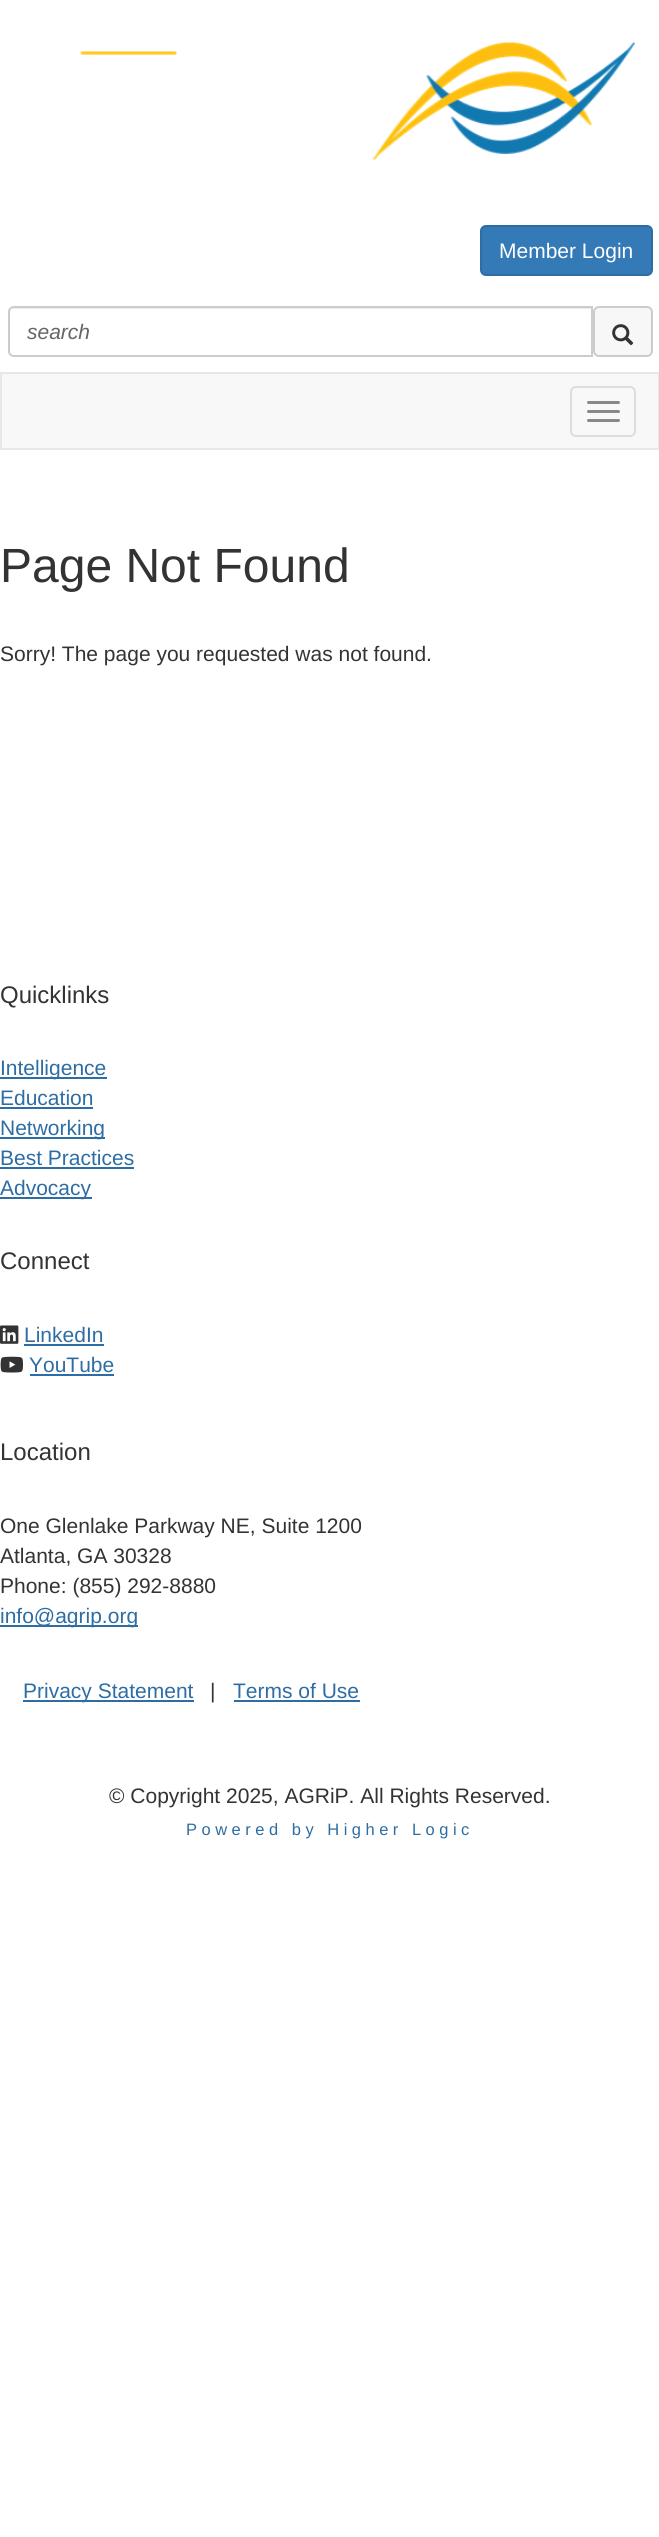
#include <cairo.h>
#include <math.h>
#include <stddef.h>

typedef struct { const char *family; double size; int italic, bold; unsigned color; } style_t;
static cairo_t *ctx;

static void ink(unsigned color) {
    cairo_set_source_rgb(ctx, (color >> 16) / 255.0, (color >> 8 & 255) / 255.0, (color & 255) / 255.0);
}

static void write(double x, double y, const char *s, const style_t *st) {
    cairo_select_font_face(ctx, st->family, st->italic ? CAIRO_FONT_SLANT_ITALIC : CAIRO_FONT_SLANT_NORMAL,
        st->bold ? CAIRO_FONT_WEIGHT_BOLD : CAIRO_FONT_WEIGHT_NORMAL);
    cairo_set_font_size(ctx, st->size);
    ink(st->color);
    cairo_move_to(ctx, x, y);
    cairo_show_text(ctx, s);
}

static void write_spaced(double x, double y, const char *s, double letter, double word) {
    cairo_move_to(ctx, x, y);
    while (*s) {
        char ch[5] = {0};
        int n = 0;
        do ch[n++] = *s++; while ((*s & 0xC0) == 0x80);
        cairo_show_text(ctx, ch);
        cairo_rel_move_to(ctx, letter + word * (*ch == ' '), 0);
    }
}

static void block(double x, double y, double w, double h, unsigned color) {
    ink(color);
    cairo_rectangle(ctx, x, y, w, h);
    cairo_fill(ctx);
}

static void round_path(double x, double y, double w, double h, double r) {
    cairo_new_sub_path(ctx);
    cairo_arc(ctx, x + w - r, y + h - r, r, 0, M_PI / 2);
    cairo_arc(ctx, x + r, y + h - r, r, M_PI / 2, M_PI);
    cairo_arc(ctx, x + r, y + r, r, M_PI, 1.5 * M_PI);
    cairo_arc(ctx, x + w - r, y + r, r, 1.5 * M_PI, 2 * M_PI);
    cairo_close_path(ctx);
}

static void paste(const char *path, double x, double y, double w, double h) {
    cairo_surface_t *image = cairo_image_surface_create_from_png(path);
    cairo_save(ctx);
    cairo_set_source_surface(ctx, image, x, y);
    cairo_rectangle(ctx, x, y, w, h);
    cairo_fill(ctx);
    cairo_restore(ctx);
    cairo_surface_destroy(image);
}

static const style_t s1 = {"Liberation Sans", 21, 0, 0, 0xffffff};
static const style_t s2 = {"Liberation Sans", 21, 1, 0, 0x666666};
static const style_t s3 = {"Liberation Sans", 48, 0, 0, 0x333333};
static const style_t s4 = {"Liberation Sans", 21, 0, 0, 0x333333};
static const style_t s5 = {"Liberation Sans", 24, 0, 0, 0x333333};
static const style_t s6 = {"Liberation Sans", 21, 0, 0, 0x2e6da4};

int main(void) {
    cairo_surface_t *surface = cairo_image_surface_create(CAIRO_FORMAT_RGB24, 659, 2537);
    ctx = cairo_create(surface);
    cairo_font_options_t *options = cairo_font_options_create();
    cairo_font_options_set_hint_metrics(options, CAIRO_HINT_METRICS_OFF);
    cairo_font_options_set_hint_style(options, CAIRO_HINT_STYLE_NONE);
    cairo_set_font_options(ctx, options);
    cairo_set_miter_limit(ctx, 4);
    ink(0xffffff);
    cairo_paint(ctx);
    paste("pic1.png", 80, 41, 555, 120);
    ink(0x337ab7);
    round_path(481, 226, 171, 49, 5);
    cairo_fill_preserve(ctx);
    ink(0x2e6da4);
    cairo_stroke(ctx);
    write(499, 258, "Member Login", &s1);
    ink(0xececec);
    cairo_new_path(ctx);
    cairo_move_to(ctx, 14, 309);
    cairo_line_to(ctx, 591, 309);
    cairo_line_to(ctx, 591, 308);
    cairo_line_to(ctx, 14, 308);
    cairo_curve_to(ctx, 11, 308, 9, 311, 9, 314);
    cairo_curve_to(ctx, 9, 311, 11, 309, 14, 309);
    cairo_close_path(ctx);
    cairo_fill(ctx);
    cairo_new_path(ctx);
    cairo_move_to(ctx, 14, 307);
    cairo_line_to(ctx, 592, 307);
    cairo_line_to(ctx, 592, 356);
    cairo_line_to(ctx, 14, 356);
    cairo_curve_to(ctx, 11, 356, 9, 354, 9, 351);
    cairo_line_to(ctx, 9, 312);
    cairo_curve_to(ctx, 9, 309, 11, 307, 14, 307);
    cairo_close_path(ctx);
    ink(0xcccccc);
    cairo_stroke(ctx);
    write(27, 339, "search", &s2);
    ink(0xf7f7f7);
    round_path(594, 307, 58, 49, 5);
    cairo_fill_preserve(ctx);
    ink(0xcccccc);
    cairo_stroke(ctx);
    paste("pic2.png", 612, 324, 22, 22);
    ink(0xf8f8f8);
    cairo_rectangle(ctx, 1, 373, 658, 76);
    cairo_fill_preserve(ctx);
    ink(0xe7e7e7);
    cairo_stroke(ctx);
    round_path(571, 387, 64, 49, 5);
    ink(0xdddddd);
    cairo_stroke(ctx);
    ink(0x888888);
    round_path(587, 401, 33, 3, 1.5);
    cairo_fill(ctx);
    round_path(587, 410, 33, 3, 1.5);
    cairo_fill(ctx);
    round_path(587, 419, 33, 3, 1.5);
    cairo_fill(ctx);
    write(0, 582, "Page Not Found", &s3);
    write(0, 661, "Sorry! The page you requested was not found.", &s4);
    write(0, 1003, "Quicklinks", &s5);
    block(0, 1077, 107, 2, 0x2e6da4);
    write(0, 1075, "Intelligence", &s6);
    write(0, 1105, "Education", &s6);
    block(0, 1107, 93, 2, 0x2e6da4);
    block(0, 1137, 105, 2, 0x2e6da4);
    write(0, 1135, "Networking", &s6);
    write(0, 1165, "Best Practices", &s6);
    block(0, 1167, 134, 2, 0x2e6da4);
    block(0, 1197, 92, 2, 0x2e6da4);
    write(0, 1195, "Advocacy", &s6);
    write(0, 1269, "Connect", &s5);
    paste("pic3.png", 0, 1325, 19, 19);
    write(24, 1342, "LinkedIn", &s6);
    block(24, 1344, 80, 2, 0x2e6da4);
    paste("pic4.png", 0, 1356, 23, 17);
    write(29, 1372, "YouTube", &s6);
    block(30, 1374, 84, 2, 0x2e6da4);
    write(0, 1460, "Location", &s5);
    write(0, 1533, "One Glenlake Parkway NE, Suite 1200", &s4);
    write(0, 1563, "Atlanta, GA 30328", &s4);
    write(0, 1593, "Phone: (855) 292-8880", &s4);
    block(0, 1625, 138, 2, 0x2e6da4);
    write(0, 1623, "info@agrip.org", &s6);
    block(23, 1700, 171, 2, 0x2e6da4);
    write(23, 1698, "Privacy Statement", &s6);
    write(210, 1698, "|", &s4);
    write(233, 1698, "Terms of Use", &s6);
    block(234, 1700, 126, 2, 0x2e6da4);
    write(109, 1803, "© Copyright 2025, AGRiP. All Rights Reserved.", &s4);
    cairo_set_font_size(ctx, 16.5);
    ink(0x2e6da4);
    write_spaced(186, 1835, "Powered by Higher Logic", 4.5, 0);
    cairo_surface_write_to_png(surface, "screenshot.png");
    cairo_font_options_destroy(options);
    cairo_destroy(ctx);
    cairo_surface_destroy(surface);
    return 0;
}
